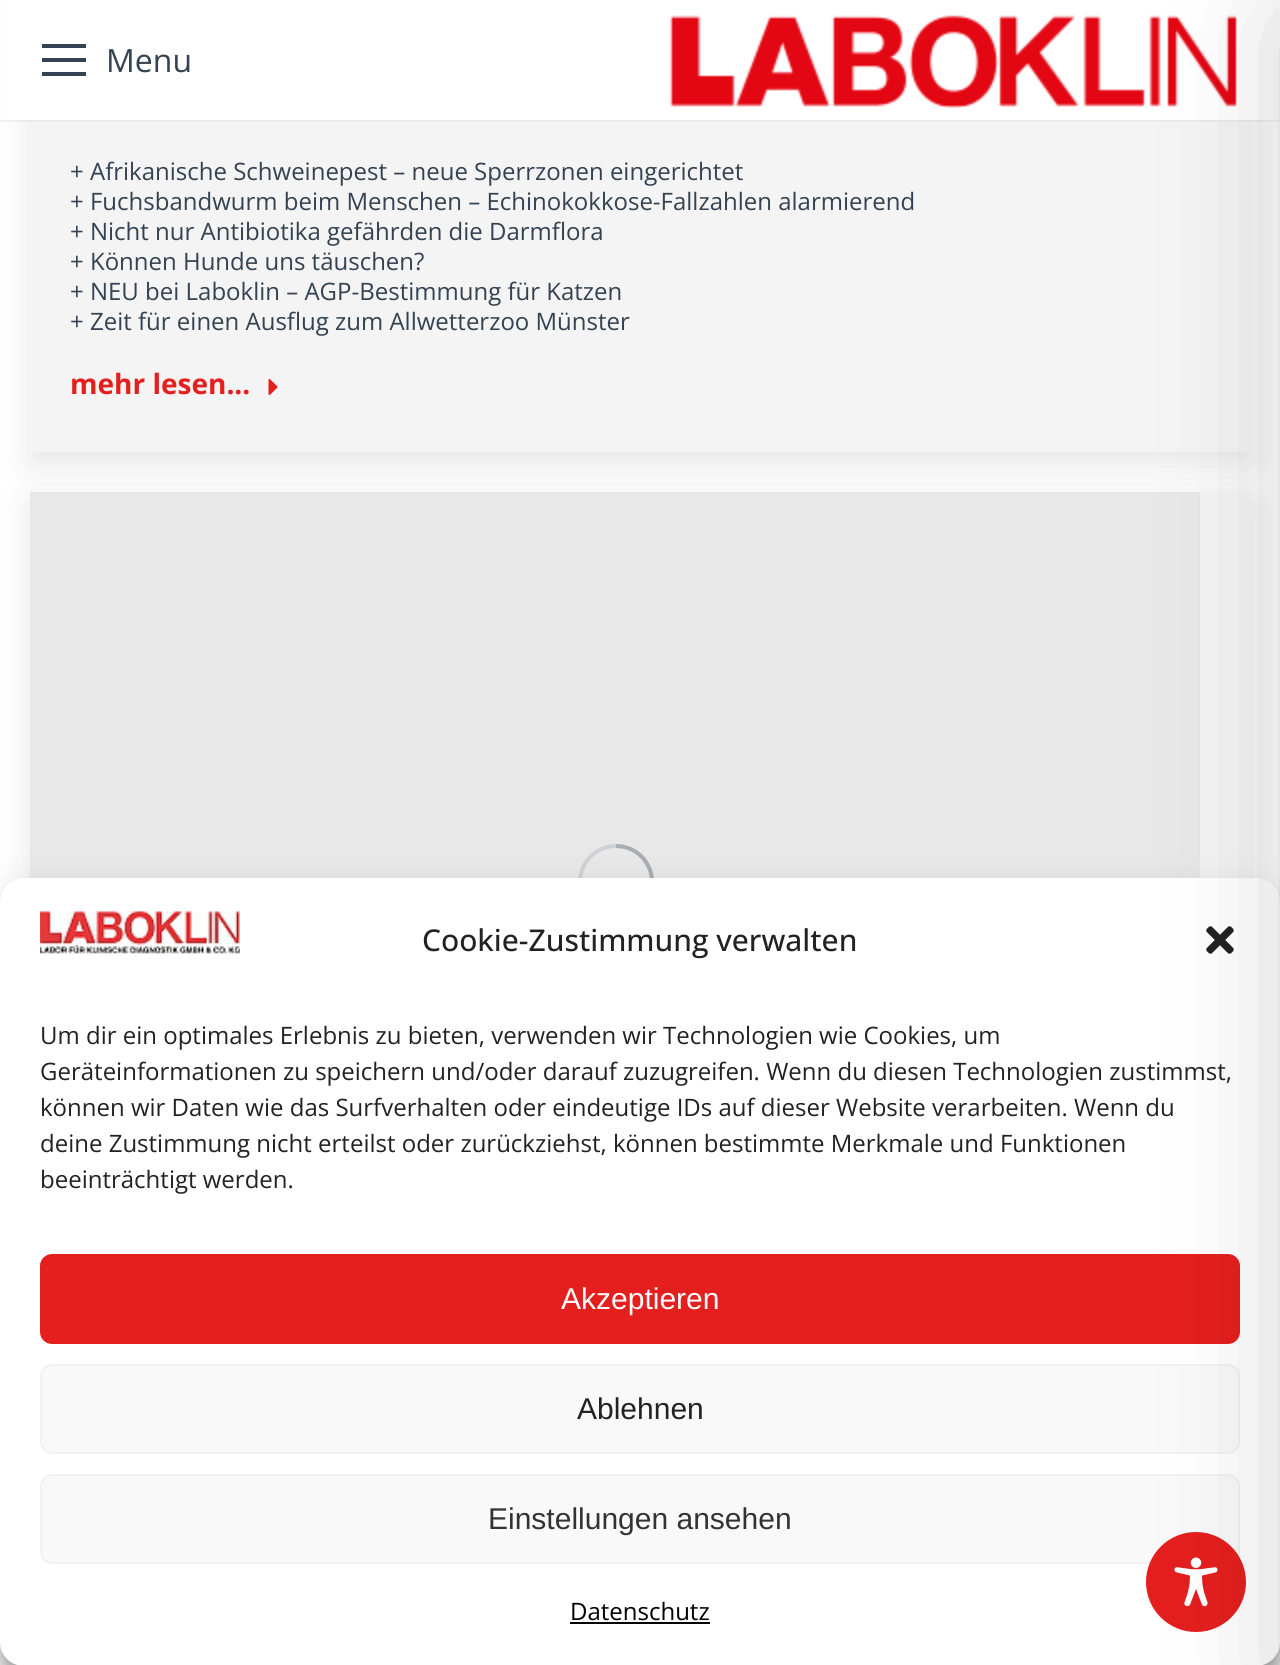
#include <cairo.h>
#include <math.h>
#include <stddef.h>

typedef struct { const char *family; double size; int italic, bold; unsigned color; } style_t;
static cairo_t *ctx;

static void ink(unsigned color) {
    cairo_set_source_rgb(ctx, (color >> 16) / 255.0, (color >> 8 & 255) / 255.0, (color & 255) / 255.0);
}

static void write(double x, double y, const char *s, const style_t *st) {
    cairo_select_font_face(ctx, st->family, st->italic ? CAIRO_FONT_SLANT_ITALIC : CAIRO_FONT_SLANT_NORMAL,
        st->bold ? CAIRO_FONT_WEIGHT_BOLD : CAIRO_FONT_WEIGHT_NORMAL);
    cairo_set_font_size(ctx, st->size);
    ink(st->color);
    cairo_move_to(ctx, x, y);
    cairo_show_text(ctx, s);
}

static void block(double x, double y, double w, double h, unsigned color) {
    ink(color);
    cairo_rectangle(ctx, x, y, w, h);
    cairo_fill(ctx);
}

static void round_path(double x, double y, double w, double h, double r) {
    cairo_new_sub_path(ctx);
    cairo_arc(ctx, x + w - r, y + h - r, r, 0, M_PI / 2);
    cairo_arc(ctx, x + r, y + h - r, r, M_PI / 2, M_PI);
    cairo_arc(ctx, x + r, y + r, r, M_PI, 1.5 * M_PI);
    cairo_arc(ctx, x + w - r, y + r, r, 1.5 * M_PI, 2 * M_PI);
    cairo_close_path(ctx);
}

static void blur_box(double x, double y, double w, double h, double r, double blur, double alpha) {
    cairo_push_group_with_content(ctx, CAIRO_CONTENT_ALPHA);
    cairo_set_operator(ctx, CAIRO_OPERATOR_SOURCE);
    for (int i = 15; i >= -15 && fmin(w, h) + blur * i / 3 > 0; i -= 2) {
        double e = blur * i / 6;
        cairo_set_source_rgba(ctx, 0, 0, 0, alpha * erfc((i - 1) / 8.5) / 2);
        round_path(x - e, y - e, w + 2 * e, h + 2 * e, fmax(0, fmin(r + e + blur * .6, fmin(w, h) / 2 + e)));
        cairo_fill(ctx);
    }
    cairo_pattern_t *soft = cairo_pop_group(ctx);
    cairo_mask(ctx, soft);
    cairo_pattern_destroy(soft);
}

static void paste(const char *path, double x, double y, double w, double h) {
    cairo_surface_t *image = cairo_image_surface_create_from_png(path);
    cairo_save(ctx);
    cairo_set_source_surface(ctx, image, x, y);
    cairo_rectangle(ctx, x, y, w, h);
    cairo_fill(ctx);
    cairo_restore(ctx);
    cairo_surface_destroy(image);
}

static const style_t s1 = {"Open Sans", 32, 0, 0, 0x344251};
static const style_t s2 = {"Open Sans", 24, 0, 0, 0x344251};
static const style_t s3 = {"Open Sans", 28, 0, 1, 0xe51e1e};
static const style_t s4 = {"Open Sans Medium", 30, 0, 0, 0x222222};
static const style_t s5 = {"Open Sans", 24, 0, 0, 0x222222};
static const style_t s6 = {"Liberation Sans", 30, 0, 0, 0xffffff};
static const style_t s7 = {"Liberation Sans", 30, 0, 0, 0x222222};
static const style_t s8 = {"Liberation Sans", 30, 0, 0, 0x333333};
static const style_t s9 = {"Open Sans", 24, 0, 0, 0x000000};

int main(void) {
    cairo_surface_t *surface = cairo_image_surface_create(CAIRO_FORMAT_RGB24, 1280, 1665);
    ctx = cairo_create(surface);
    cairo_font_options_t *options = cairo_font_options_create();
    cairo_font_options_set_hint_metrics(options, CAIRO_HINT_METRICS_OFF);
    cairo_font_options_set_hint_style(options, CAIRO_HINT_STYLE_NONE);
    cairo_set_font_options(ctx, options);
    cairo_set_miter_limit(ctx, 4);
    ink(0xffffff);
    cairo_paint(ctx);
    ink(0x000000);
    blur_box(30, -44, 1220, 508, 0, 18, 0.1);
    block(32, 0, 1216, 452, 0xf4f4f4);
    cairo_set_source_rgba(ctx, 0.02, 0.149, 0.224, 0.05);
    cairo_rectangle(ctx, 0, 120, 1280, 2);
    cairo_fill(ctx);
    cairo_set_source_rgba(ctx, 1, 1, 1, 0.98);
    cairo_rectangle(ctx, 7, 0, 1266, 120);
    cairo_fill(ctx);
    block(42, 44, 44, 4, 0x344251);
    block(42, 58, 44, 4, 0x344251);
    block(42, 72, 44, 4, 0x344251);
    write(106, 72, "Menu", &s1);
    paste("pic1.png", 669, 15, 568, 93);
    write(70, 180, "+ Afrikanische Schweinepest – neue Sperrzonen eingerichtet", &s2);
    write(70, 210, "+ Fuchsbandwurm beim Menschen – Echinokokkose-Fallzahlen alarmierend", &s2);
    write(70, 240, "+ Nicht nur Antibiotika gefährden die Darmflora", &s2);
    write(70, 270, "+ Können Hunde uns täuschen?", &s2);
    write(70, 300, "+ NEU bei Laboklin – AGP-Bestimmung für Katzen", &s2);
    write(70, 330, "+ Zeit für einen Ausflug zum Allwetterzoo Münster", &s2);
    write(70, 394, "mehr lesen...", &s3);
    paste("pic2.png", 268, 379, 10, 16);
    ink(0x000000);
    blur_box(30, 504, 1220, 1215, 0, 18, 0.1);
    block(1200, 492, 50, 386, 0xf4f4f4);
    block(30, 492, 1170, 386, 0xe8e8e9);
    cairo_arc(ctx, 616, 882, 36, 0, 2 * M_PI);
    ink(0xcfd1d4);
    cairo_set_line_width(ctx, 4);
    cairo_stroke(ctx);
    cairo_new_path(ctx);
    cairo_move_to(ctx, 652, 882);
    cairo_curve_to(ctx, 652, 862, 636, 846, 616, 846);
    cairo_set_source_rgba(ctx, 0.204, 0.259, 0.318, 0.25);
    cairo_stroke(ctx);
    ink(0x000000);
    blur_box(0, 890, 1280, 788, 24, 6, 0.23);
    blur_box(0, 898, 1280, 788, 24, 20, 0.19);
    ink(0xffffff);
    round_path(0, 878, 1280, 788, 24);
    cairo_fill(ctx);
    paste("pic4.png", 1206, 926, 28, 28);
    ink(0xe51e1e);
    round_path(41, 1255, 1198, 88, 11);
    cairo_fill_preserve(ctx);
    cairo_set_line_width(ctx, 2);
    cairo_stroke(ctx);
    ink(0xf9f9f9);
    round_path(41, 1365, 1198, 88, 11);
    cairo_fill_preserve(ctx);
    ink(0xf2f2f2);
    cairo_stroke(ctx);
    ink(0xf9f9f9);
    round_path(41, 1475, 1198, 88, 11);
    cairo_fill_preserve(ctx);
    ink(0xf2f2f2);
    cairo_stroke(ctx);
    ink(0xe51e1e);
    cairo_arc(ctx, 1196, 1582, 50, 0, 2 * M_PI);
    cairo_fill(ctx);
    paste("pic5.png", 1174, 1557, 44, 50);
    ink(0x000000);
    blur_box(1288, 20, 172, 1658, 0, 60, 0.2);
    paste("pic3.png", 40, 911, 200, 43);
    write(422, 951, "Cookie-Zustimmung verwalten", &s4);
    write(40, 1044, "Um dir ein optimales Erlebnis zu bieten, verwenden wir Technologien wie Cookies, um", &s5);
    write(40, 1080, "Geräteinformationen zu speichern und/oder darauf zuzugreifen. Wenn du diesen Technologien zustimmst,", &s5);
    write(40, 1116, "können wir Daten wie das Surfverhalten oder eindeutige IDs auf dieser Website verarbeiten. Wenn du", &s5);
    write(40, 1152, "deine Zustimmung nicht erteilst oder zurückziehst, können bestimmte Merkmale und Funktionen", &s5);
    write(40, 1188, "beeinträchtigt werden.", &s5);
    write(561, 1309, "Akzeptieren", &s6);
    write(577, 1419, "Ablehnen", &s7);
    write(488, 1529, "Einstellungen ansehen", &s8);
    write(570, 1620, "Datenschutz", &s9);
    block(570, 1622, 140, 2, 0x000000);
    cairo_surface_write_to_png(surface, "screenshot.png");
    cairo_font_options_destroy(options);
    cairo_destroy(ctx);
    cairo_surface_destroy(surface);
    return 0;
}
